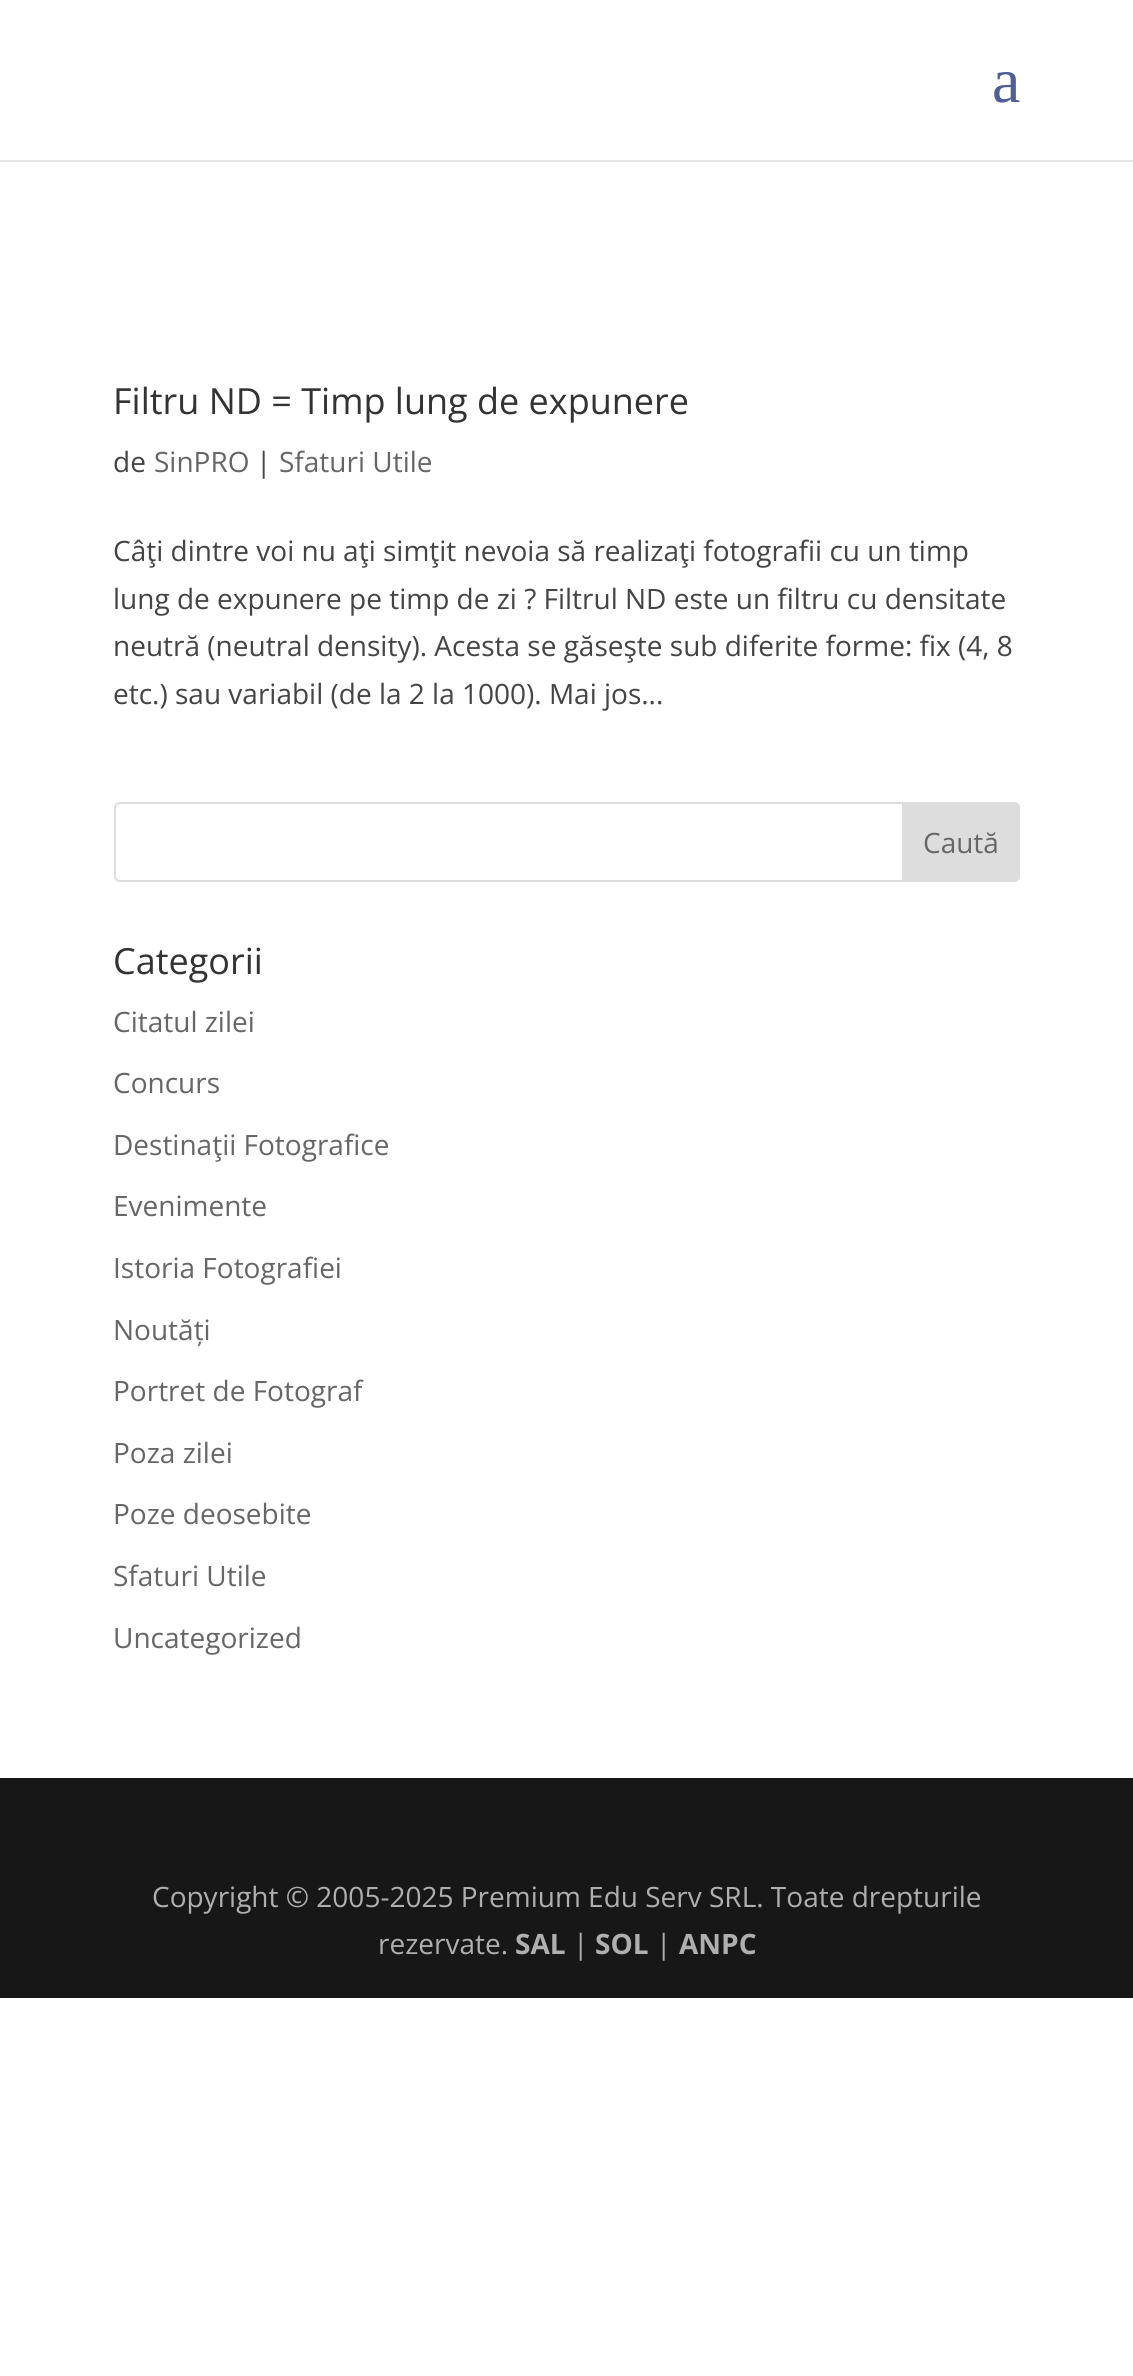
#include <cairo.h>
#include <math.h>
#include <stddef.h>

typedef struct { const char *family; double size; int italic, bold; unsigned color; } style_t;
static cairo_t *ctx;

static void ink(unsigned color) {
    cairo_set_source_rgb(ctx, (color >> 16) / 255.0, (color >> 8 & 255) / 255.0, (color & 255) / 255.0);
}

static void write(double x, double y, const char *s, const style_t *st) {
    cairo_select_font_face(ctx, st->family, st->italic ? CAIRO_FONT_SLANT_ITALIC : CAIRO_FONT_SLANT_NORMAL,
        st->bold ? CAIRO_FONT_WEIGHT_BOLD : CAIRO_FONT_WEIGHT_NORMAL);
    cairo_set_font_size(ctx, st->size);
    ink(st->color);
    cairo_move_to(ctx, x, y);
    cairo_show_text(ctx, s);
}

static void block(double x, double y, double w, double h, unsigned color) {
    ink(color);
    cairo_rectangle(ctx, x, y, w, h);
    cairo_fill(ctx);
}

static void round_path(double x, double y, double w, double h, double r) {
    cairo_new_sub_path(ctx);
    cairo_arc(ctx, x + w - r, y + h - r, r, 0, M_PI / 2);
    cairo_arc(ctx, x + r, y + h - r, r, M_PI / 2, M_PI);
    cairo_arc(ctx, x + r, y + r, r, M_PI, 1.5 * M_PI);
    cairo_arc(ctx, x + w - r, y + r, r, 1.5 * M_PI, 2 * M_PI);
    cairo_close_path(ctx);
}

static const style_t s1 = {"Liberation Serif", 64, 0, 0, 0x4f5e98};
static const style_t s2 = {"Open Sans", 36, 0, 0, 0x333333};
static const style_t s3 = {"Open Sans", 28, 0, 0, 0x444444};
static const style_t s4 = {"Open Sans", 28, 0, 0, 0x666666};
static const style_t s5 = {"Open Sans", 28, 0, 0, 0xafafaf};
static const style_t s6 = {"Open Sans", 28, 0, 1, 0xafafaf};

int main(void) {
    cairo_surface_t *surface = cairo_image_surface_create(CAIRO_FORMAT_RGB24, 1133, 2376);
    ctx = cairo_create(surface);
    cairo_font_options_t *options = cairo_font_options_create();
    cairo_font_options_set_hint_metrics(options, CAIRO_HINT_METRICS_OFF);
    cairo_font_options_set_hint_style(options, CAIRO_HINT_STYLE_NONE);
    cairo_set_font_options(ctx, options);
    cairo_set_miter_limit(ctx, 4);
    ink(0xffffff);
    cairo_paint(ctx);
    block(0, 160, 1133, 2, 0xe6e6e6);
    write(992, 102, "a", &s1);
    write(113, 414, "Filtru ND = Timp lung de expunere", &s2);
    write(113, 472, "de", &s3);
    write(154, 472, "SinPRO", &s4);
    write(256, 472, "|", &s3);
    write(279, 472, "Sfaturi Utile", &s4);
    write(113, 561, "Câţi dintre voi nu aţi simţit nevoia să realizaţi fotografii cu un timp", &s3);
    write(113, 609, "lung de expunere pe timp de zi ? Filtrul ND este un filtru cu densitate", &s3);
    write(113, 656, "neutră (neutral density). Acesta se găseşte sub diferite forme: fix (4, 8", &s3);
    write(113, 704, "etc.) sau variabil (de la 2 la 1000). Mai jos...", &s3);
    round_path(115, 803, 904, 78, 5);
    ink(0xdddddd);
    cairo_stroke(ctx);
    cairo_new_path(ctx);
    cairo_move_to(ctx, 903, 803);
    cairo_line_to(ctx, 1014, 803);
    cairo_curve_to(ctx, 1017, 803, 1019, 805, 1019, 808);
    cairo_line_to(ctx, 1019, 876);
    cairo_curve_to(ctx, 1019, 879, 1017, 881, 1014, 881);
    cairo_line_to(ctx, 903, 881);
    cairo_close_path(ctx);
    cairo_fill_preserve(ctx);
    cairo_stroke(ctx);
    write(923, 853, "Caută", &s4);
    write(113, 974, "Categorii", &s2);
    write(113, 1032, "Citatul zilei", &s4);
    write(113, 1093, "Concurs", &s4);
    write(113, 1155, "Destinaţii Fotografice", &s4);
    write(113, 1216, "Evenimente", &s4);
    write(113, 1278, "Istoria Fotografiei", &s4);
    write(113, 1340, "Noutăți", &s4);
    write(113, 1401, "Portret de Fotograf", &s4);
    write(113, 1463, "Poza zilei", &s4);
    write(113, 1524, "Poze deosebite", &s4);
    write(113, 1586, "Sfaturi Utile", &s4);
    write(113, 1648, "Uncategorized", &s4);
    block(0, 1778, 1133, 220, 0x171717);
    write(152, 1907, "Copyright © 2005-2025 Premium Edu Serv SRL. Toate drepturile", &s5);
    write(378, 1954, "rezervate.", &s5);
    write(515, 1954, "SAL", &s6);
    write(573, 1954, "|", &s5);
    write(595, 1954, "SOL", &s6);
    write(656, 1954, "|", &s5);
    write(679, 1954, "ANPC", &s6);
    cairo_surface_write_to_png(surface, "screenshot.png");
    cairo_font_options_destroy(options);
    cairo_destroy(ctx);
    cairo_surface_destroy(surface);
    return 0;
}
